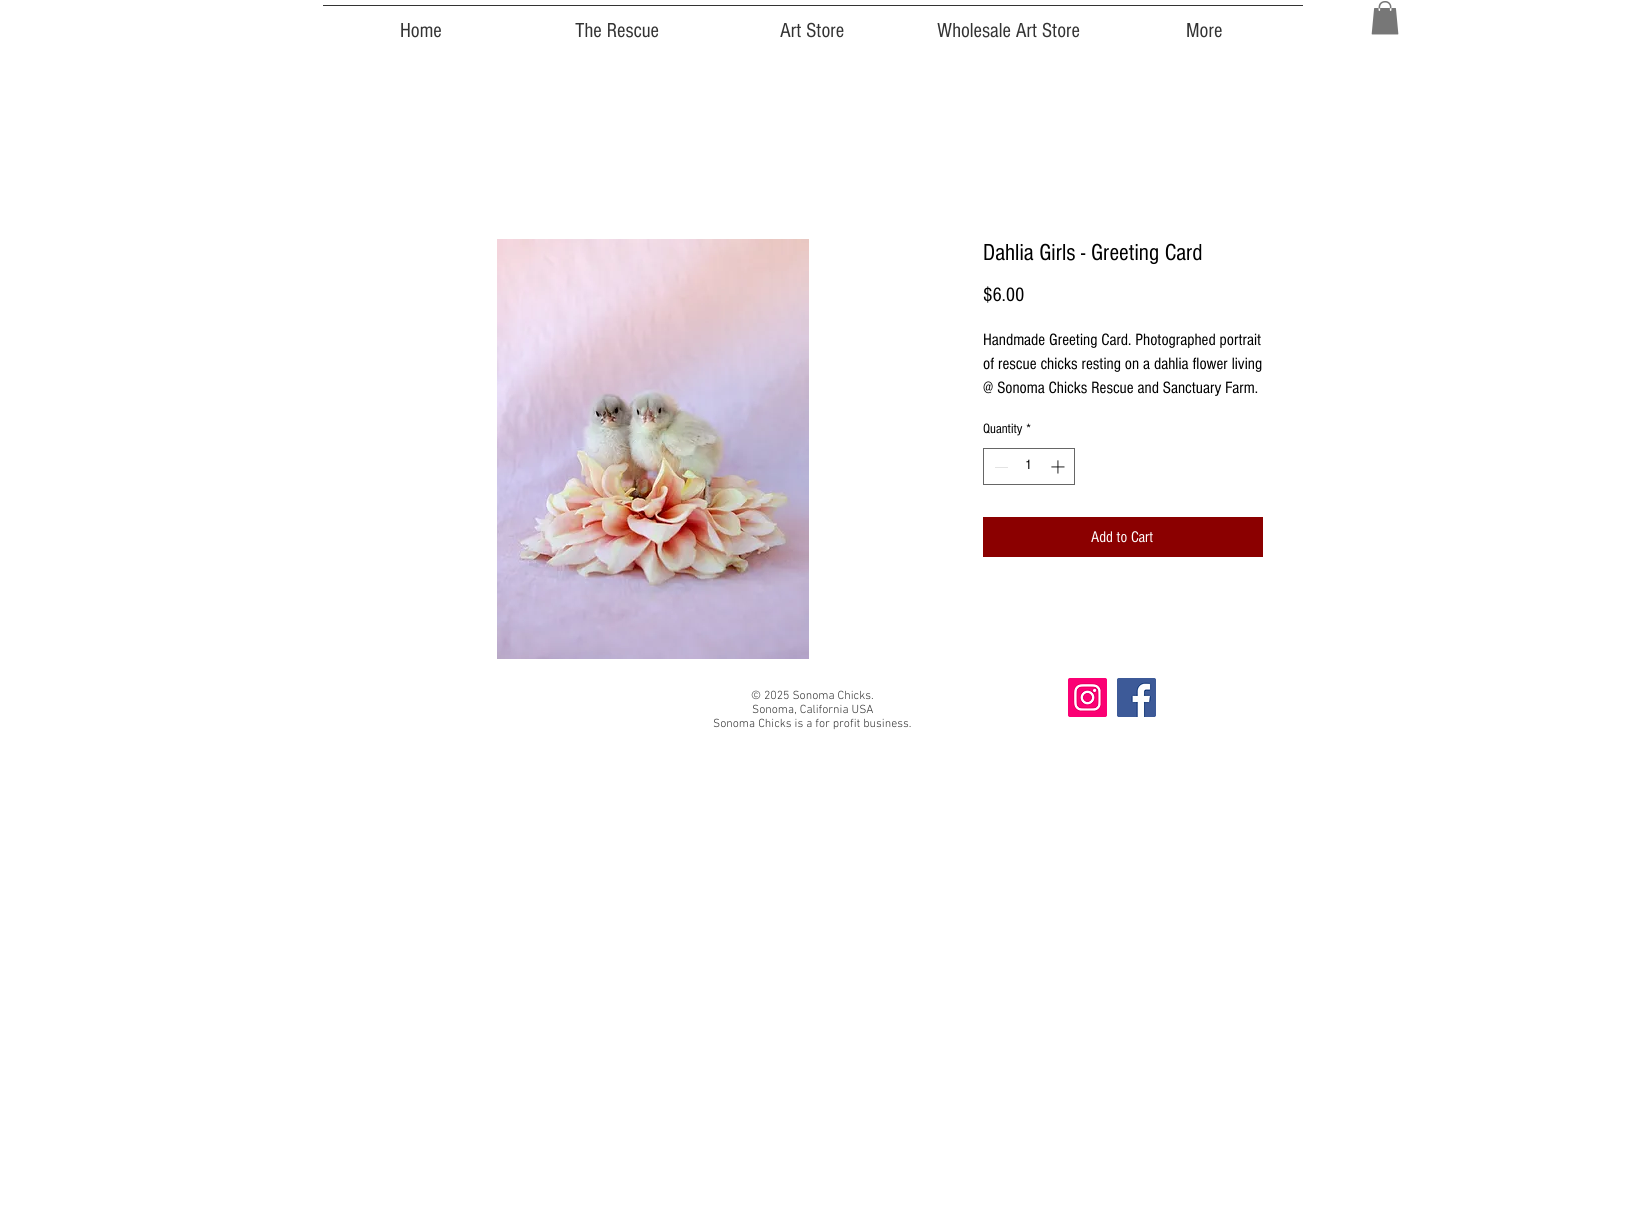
#include <cairo.h>
#include <math.h>
#include <stddef.h>

typedef struct { const char *family; double size; int italic, bold; unsigned color; } style_t;
static cairo_t *ctx;

static void ink(unsigned color) {
    cairo_set_source_rgb(ctx, (color >> 16) / 255.0, (color >> 8 & 255) / 255.0, (color & 255) / 255.0);
}

static void write(double x, double y, const char *s, const style_t *st) {
    cairo_select_font_face(ctx, st->family, st->italic ? CAIRO_FONT_SLANT_ITALIC : CAIRO_FONT_SLANT_NORMAL,
        st->bold ? CAIRO_FONT_WEIGHT_BOLD : CAIRO_FONT_WEIGHT_NORMAL);
    cairo_set_font_size(ctx, st->size);
    ink(st->color);
    cairo_move_to(ctx, x, y);
    cairo_show_text(ctx, s);
}

static void block(double x, double y, double w, double h, unsigned color) {
    ink(color);
    cairo_rectangle(ctx, x, y, w, h);
    cairo_fill(ctx);
}

static void paste(const char *path, double x, double y, double w, double h) {
    cairo_surface_t *image = cairo_image_surface_create_from_png(path);
    cairo_save(ctx);
    cairo_set_source_surface(ctx, image, x, y);
    cairo_rectangle(ctx, x, y, w, h);
    cairo_fill(ctx);
    cairo_restore(ctx);
    cairo_surface_destroy(image);
}

static const style_t s1 = {"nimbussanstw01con", 21, 0, 0, 0x333333};
static const style_t s2 = {"nimbussanstw01con", 24, 0, 0, 0x000000};
static const style_t s3 = {"nimbussanstw01con", 20, 0, 0, 0x000000};
static const style_t s4 = {"nimbussanstw01con", 17, 0, 0, 0x000000};
static const style_t s5 = {"nimbussanstw01con", 14, 0, 0, 0x000000};
static const style_t s6 = {"nimbussanstw01con", 16, 0, 0, 0xffffff};
static const style_t s7 = {"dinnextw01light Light", 12, 0, 0, 0x333333};

int main(void) {
    cairo_surface_t *surface = cairo_image_surface_create(CAIRO_FORMAT_RGB24, 1625, 1228);
    ctx = cairo_create(surface);
    cairo_font_options_t *options = cairo_font_options_create();
    cairo_font_options_set_hint_metrics(options, CAIRO_HINT_METRICS_OFF);
    cairo_font_options_set_hint_style(options, CAIRO_HINT_STYLE_NONE);
    cairo_set_font_options(ctx, options);
    cairo_set_miter_limit(ctx, 4);
    ink(0xffffff);
    cairo_paint(ctx);
    block(323, 5, 980, 1, 0x333333);
    write(400, 37, "Home", &s1);
    write(575, 37, "The Rescue", &s1);
    write(780, 37, "Art Store", &s1);
    write(937, 37, "Wholesale Art Store", &s1);
    write(1186, 37, "More", &s1);
    paste("pic1.png", 1371, 1, 28, 34);
    paste("pic2.png", 497, 239, 312, 420);
    write(983, 260, "Dahlia Girls - Greeting Card", &s2);
    write(983, 301, "$6.00", &s3);
    write(983, 345, "Handmade Greeting Card. Photographed portrait", &s4);
    write(983, 369, "of rescue chicks resting on a dahlia flower living", &s4);
    write(983, 393, "@ Sonoma Chicks Rescue and Sanctuary Farm.", &s4);
    write(983, 433, "Quantity", &s5);
    write(1026, 433, "*", &s5);
    cairo_rectangle(ctx, 983.5, 448.5, 91, 36);
    ink(0x666666);
    cairo_set_line_width(ctx, 1);
    cairo_stroke(ctx);
    block(995, 467, 13, 1, 0xe3e3e3);
    write(1025, 469, "1", &s5);
    paste("pic3.png", 1051, 460, 14, 14);
    block(983, 517, 280, 40, 0x8b0000);
    write(1091, 542, "Add to Cart", &s6);
    write(751, 699, "© 2025 Sonoma Chicks.", &s7);
    write(752, 713, "Sonoma, California USA", &s7);
    write(713, 727, "Sonoma Chicks is a for profit business.", &s7);
    paste("pic4.png", 1068, 678, 39, 39);
    paste("pic5.png", 1117, 678, 39, 39);
    cairo_surface_write_to_png(surface, "screenshot.png");
    cairo_font_options_destroy(options);
    cairo_destroy(ctx);
    cairo_surface_destroy(surface);
    return 0;
}
